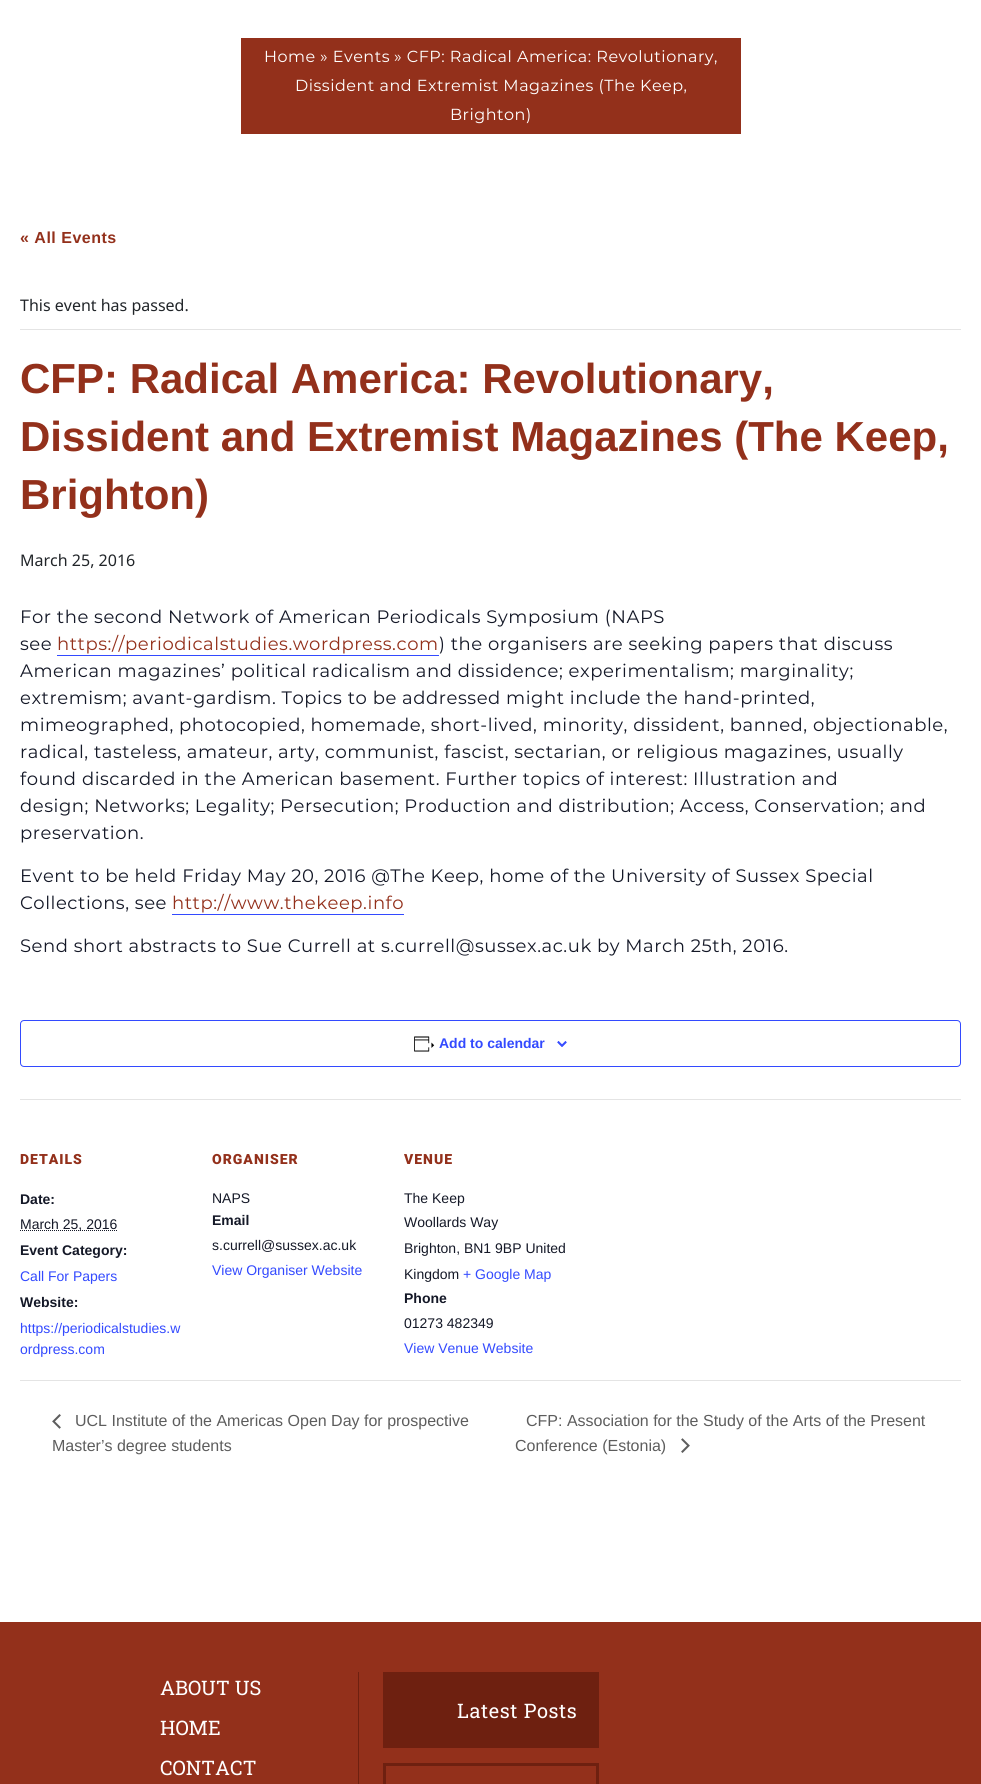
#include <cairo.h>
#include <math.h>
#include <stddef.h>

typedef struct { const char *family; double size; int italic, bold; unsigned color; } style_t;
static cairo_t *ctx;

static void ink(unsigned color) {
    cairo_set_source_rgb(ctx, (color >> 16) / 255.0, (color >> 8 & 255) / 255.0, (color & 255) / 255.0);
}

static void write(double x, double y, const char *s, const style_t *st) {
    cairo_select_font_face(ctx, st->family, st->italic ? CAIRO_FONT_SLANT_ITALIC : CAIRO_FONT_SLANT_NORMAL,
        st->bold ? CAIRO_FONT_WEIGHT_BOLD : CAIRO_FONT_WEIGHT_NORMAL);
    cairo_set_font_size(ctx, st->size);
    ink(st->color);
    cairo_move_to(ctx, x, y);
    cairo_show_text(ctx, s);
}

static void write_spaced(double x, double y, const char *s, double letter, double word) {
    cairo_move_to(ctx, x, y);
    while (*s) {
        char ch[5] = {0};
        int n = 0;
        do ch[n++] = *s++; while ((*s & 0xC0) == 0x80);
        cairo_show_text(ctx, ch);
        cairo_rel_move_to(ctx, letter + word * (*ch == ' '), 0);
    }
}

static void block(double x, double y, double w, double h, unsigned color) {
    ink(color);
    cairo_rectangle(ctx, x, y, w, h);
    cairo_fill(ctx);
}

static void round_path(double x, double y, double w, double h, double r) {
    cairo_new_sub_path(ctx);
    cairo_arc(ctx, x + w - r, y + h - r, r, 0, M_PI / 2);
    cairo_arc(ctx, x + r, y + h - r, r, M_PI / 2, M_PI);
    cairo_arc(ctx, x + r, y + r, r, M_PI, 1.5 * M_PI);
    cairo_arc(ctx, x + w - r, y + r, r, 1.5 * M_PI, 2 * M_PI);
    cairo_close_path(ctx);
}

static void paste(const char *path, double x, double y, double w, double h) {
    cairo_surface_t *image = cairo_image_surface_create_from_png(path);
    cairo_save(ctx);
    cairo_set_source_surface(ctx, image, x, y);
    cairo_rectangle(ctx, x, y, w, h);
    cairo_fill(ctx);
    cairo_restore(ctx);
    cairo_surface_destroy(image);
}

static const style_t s1 = {"Noto Sans", 16, 0, 0, 0x212529};
static const style_t s2 = {"Liberation Sans", 42, 0, 1, 0x93301b};
static const style_t s3 = {"Liberation Sans", 14, 0, 1, 0x334aff};
static const style_t s4 = {"Liberation Sans", 14, 0, 1, 0x141827};
static const style_t s5 = {"Liberation Sans", 14, 0, 0, 0x141827};
static const style_t s6 = {"Liberation Sans", 14, 0, 0, 0x334aff};
static const style_t s7 = {"Liberation Sans", 16, 0, 0, 0x5d5d5d};
static const style_t s8 = {"Roboto Slab", 20, 0, 0, 0xffffff};

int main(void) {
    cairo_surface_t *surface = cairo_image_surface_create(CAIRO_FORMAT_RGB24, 981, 1784);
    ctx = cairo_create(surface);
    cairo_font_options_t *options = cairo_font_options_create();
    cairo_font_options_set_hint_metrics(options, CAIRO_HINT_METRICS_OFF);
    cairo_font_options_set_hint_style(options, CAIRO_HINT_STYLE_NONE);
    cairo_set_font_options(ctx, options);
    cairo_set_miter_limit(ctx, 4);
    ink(0xffffff);
    cairo_paint(ctx);
    block(241, 38, 500, 96, 0x93301b);
    cairo_select_font_face(ctx, "Montserrat", CAIRO_FONT_SLANT_NORMAL, CAIRO_FONT_WEIGHT_NORMAL);
    cairo_set_font_size(ctx, 16);
    ink(0xffffff);
    write_spaced(264, 62, "Home", 0.5, 0);
    write_spaced(320, 62, "» Events", 0.5, 0);
    write_spaced(394, 62, "» CFP: Radical America: Revolutionary,", 0.5, 0);
    write_spaced(295, 91, "Dissident and Extremist Magazines (The Keep,", 0.5, 0);
    write_spaced(450, 120, "Brighton)", 0.5, 0);
    cairo_select_font_face(ctx, "Liberation Sans", CAIRO_FONT_SLANT_NORMAL, CAIRO_FONT_WEIGHT_BOLD);
    ink(0x93301b);
    write_spaced(20, 243, "« All Events", 0.5, 0);
    block(20, 329, 941, 1, 0xe4e4e4);
    write(20, 311, "This event has passed.", &s1);
    write(20, 393, "CFP: Radical America: Revolutionary,", &s2);
    write(20, 451, "Dissident and Extremist Magazines (The Keep,", &s2);
    write(20, 509, "Brighton)", &s2);
    write(20, 566, "March 25, 2016", &s1);
    cairo_select_font_face(ctx, "Montserrat", CAIRO_FONT_SLANT_NORMAL, CAIRO_FONT_WEIGHT_NORMAL);
    cairo_set_font_size(ctx, 18);
    ink(0x141827);
    write_spaced(20, 623, "For the second Network of American Periodicals Symposium (NAPS", 0.55, 0);
    write_spaced(20, 650, "see", 0.55, 0);
    ink(0x93301b);
    write_spaced(57, 650, "https://periodicalstudies.wordpress.com", 0.55, 0);
    block(57, 655, 382, 1, 0x334aff);
    ink(0x141827);
    write_spaced(439, 650, ") the organisers are seeking papers that discuss", 0.55, 0);
    write_spaced(20, 677, "American magazines’ political radicalism and dissidence; experimentalism; marginality;", 0.55, 0);
    write_spaced(20, 704, "extremism; avant-gardism. Topics to be addressed might include the hand-printed,", 0.55, 0);
    write_spaced(20, 731, "mimeographed, photocopied, homemade, short-lived, minority, dissident, banned, objectionable,", 0.55, 0);
    write_spaced(20, 758, "radical, tasteless, amateur, arty, communist, fascist, sectarian, or religious magazines, usually", 0.55, 0);
    write_spaced(20, 785, "found discarded in the American basement. Further topics of interest: Illustration and", 0.55, 0);
    write_spaced(20, 812, "design; Networks; Legality; Persecution; Production and distribution; Access, Conservation; and", 0.55, 0);
    write_spaced(20, 839, "preservation.", 0.55, 0);
    write_spaced(20, 882, "Event to be held Friday May 20, 2016 @The Keep, home of the University of Sussex Special", 0.55, 0);
    write_spaced(20, 909, "Collections, see", 0.55, 0);
    ink(0x93301b);
    write_spaced(172, 909, "http://www.thekeep.info", 0.55, 0);
    block(172, 914, 232, 1, 0x334aff);
    ink(0x141827);
    write_spaced(20, 952, "Send short abstracts to Sue Currell at s.currell@sussex.ac.uk by March 25th, 2016.", 0.55, 0);
    round_path(20.5, 1020.5, 940, 46, 3.5);
    ink(0x334aff);
    cairo_set_line_width(ctx, 1);
    cairo_stroke(ctx);
    paste("pic1.png", 414, 1036, 21, 16);
    write(439, 1048, "Add to calendar", &s3);
    paste("pic2.png", 557, 1041, 10, 6);
    block(20, 1099, 941, 1, 0xe4e4e4);
    cairo_select_font_face(ctx, "Roboto Black", CAIRO_FONT_SLANT_NORMAL, CAIRO_FONT_WEIGHT_NORMAL);
    ink(0x93301b);
    write_spaced(20, 1164, "DETAILS", 1, 0);
    write(20, 1204, "Date:", &s4);
    cairo_new_path(ctx);
    cairo_move_to(ctx, 20, 1230.5);
    cairo_line_to(ctx, 117.5, 1230.5);
    cairo_set_dash(ctx, (double[]){1, 1}, 2, 0);
    cairo_stroke(ctx);
    write(20, 1229, "March 25, 2016", &s5);
    write(20, 1255, "Event Category:", &s4);
    write(20, 1281, "Call For Papers", &s6);
    write(20, 1307, "Website:", &s4);
    write(20, 1333, "https://periodicalstudies.w", &s6);
    write(20, 1354, "ordpress.com", &s6);
    cairo_select_font_face(ctx, "Roboto Black", CAIRO_FONT_SLANT_NORMAL, CAIRO_FONT_WEIGHT_NORMAL);
    ink(0x93301b);
    write_spaced(212, 1164, "ORGANISER", 1, 0);
    write(212, 1203, "NAPS", &s5);
    write(212, 1225, "Email", &s4);
    write(212, 1250, "s.currell@sussex.ac.uk", &s5);
    write(212, 1275, "View Organiser Website", &s6);
    cairo_select_font_face(ctx, "Roboto Black", CAIRO_FONT_SLANT_NORMAL, CAIRO_FONT_WEIGHT_NORMAL);
    ink(0x93301b);
    write_spaced(404, 1164, "VENUE", 1, 0);
    write(404, 1203, "The Keep", &s5);
    write(404, 1227, "Woollards Way", &s5);
    write(404, 1253, "Brighton, BN1 9BP United", &s5);
    write(404, 1279, "Kingdom", &s5);
    write(463, 1279, "+ Google Map", &s6);
    write(404, 1303, "Phone", &s4);
    write(404, 1328, "01273 482349", &s5);
    write(404, 1353, "View Venue Website", &s6);
    block(20, 1380, 941, 1, 0xe4e4e4);
    paste("pic3.png", 52, 1414, 9, 15);
    write(75, 1426, "UCL Institute of the Americas Open Day for prospective", &s7);
    write(52, 1451, "Master’s degree students", &s7);
    write(526, 1426, "CFP: Association for the Study of the Arts of the Present", &s7);
    write(515, 1451, "Conference (Estonia)", &s7);
    paste("pic4.png", 681, 1438, 9, 15);
    block(0, 1622, 981, 162, 0x93301b);
    block(358, 1672, 1, 112, 0x6e2010);
    write(160, 1695, "ABOUT US", &s8);
    write(160, 1735, "HOME", &s8);
    write(160, 1775, "CONTACT", &s8);
    block(383, 1672, 216, 76, 0x6e2010);
    ink(0xffffff);
    write_spaced(457, 1718, "Latest Posts", 0.6, 0);
    cairo_rectangle(ctx, 384.5, 1764.5, 213, 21);
    ink(0x6e2010);
    cairo_set_line_width(ctx, 3);
    cairo_set_dash(ctx, NULL, 0, 0);
    cairo_stroke(ctx);
    cairo_surface_write_to_png(surface, "screenshot.png");
    cairo_font_options_destroy(options);
    cairo_destroy(ctx);
    cairo_surface_destroy(surface);
    return 0;
}
